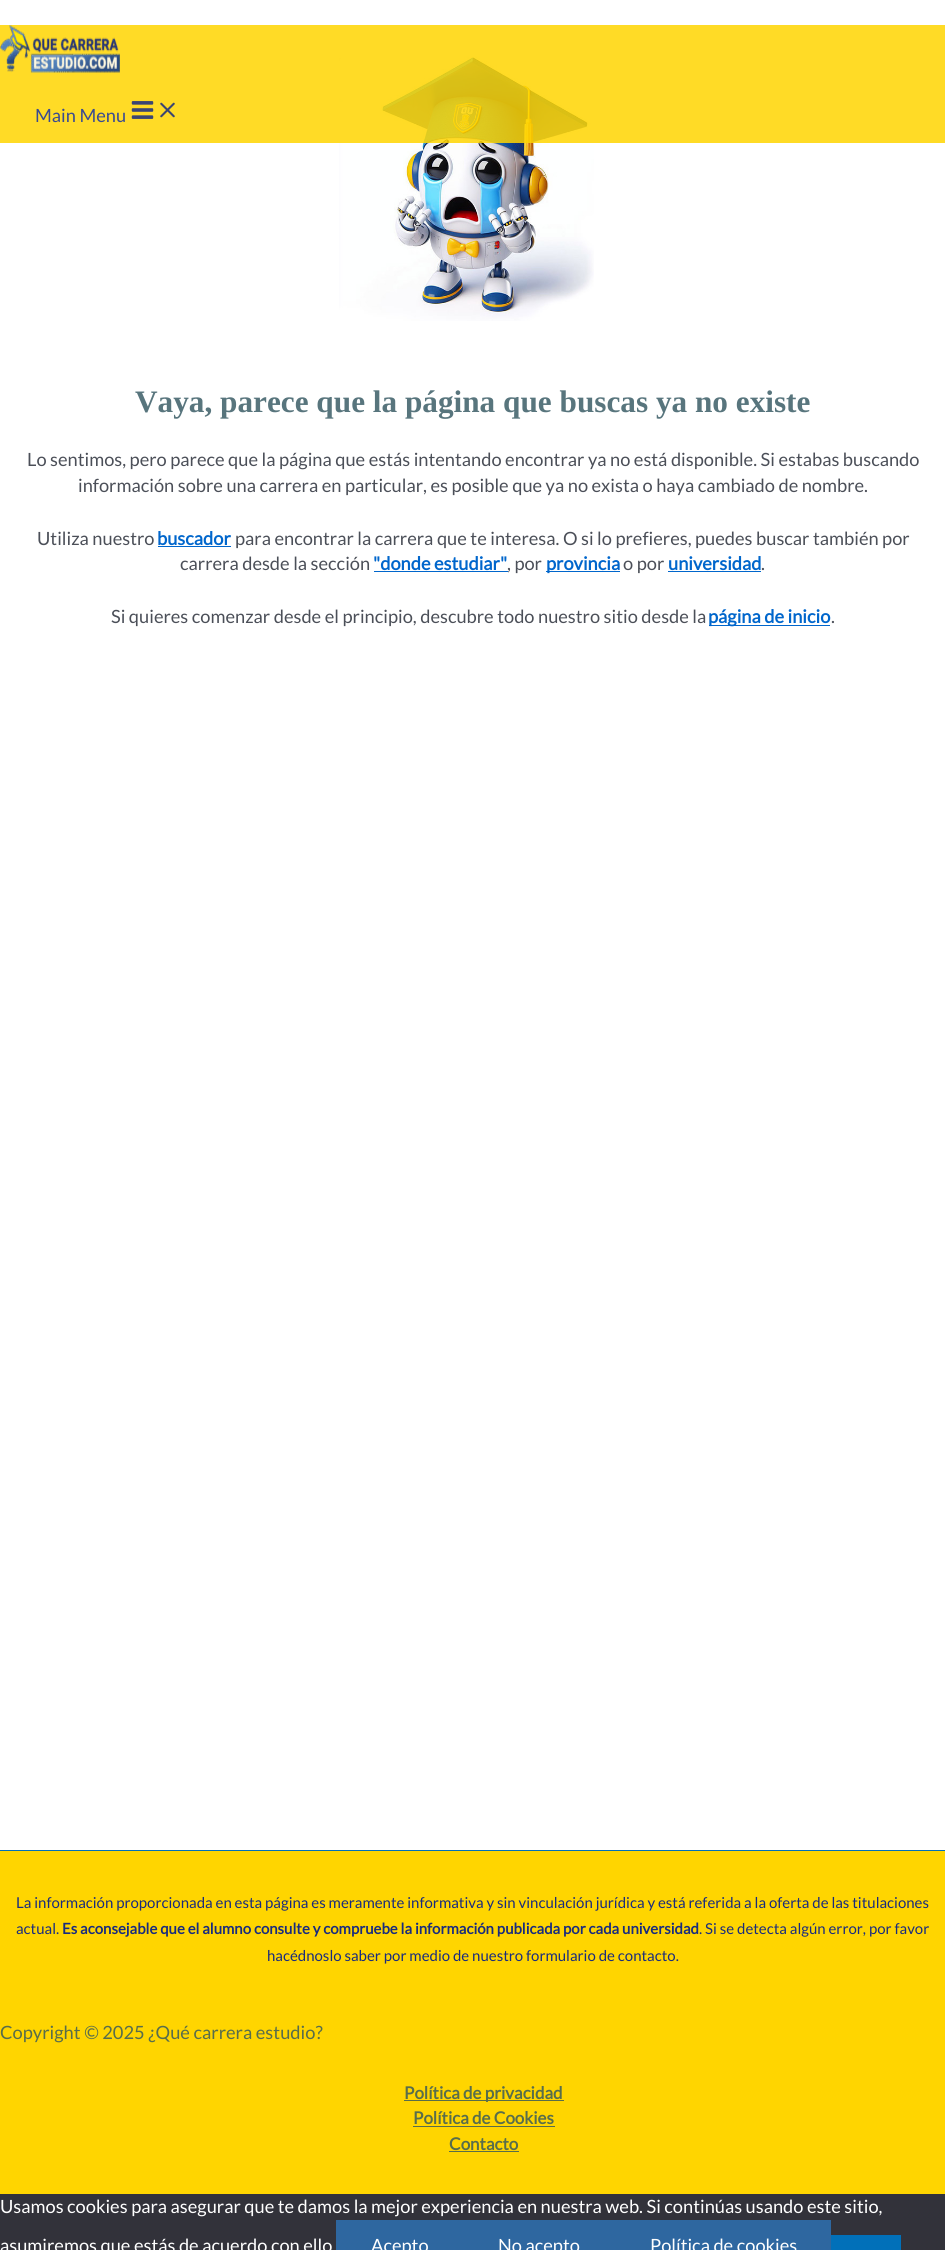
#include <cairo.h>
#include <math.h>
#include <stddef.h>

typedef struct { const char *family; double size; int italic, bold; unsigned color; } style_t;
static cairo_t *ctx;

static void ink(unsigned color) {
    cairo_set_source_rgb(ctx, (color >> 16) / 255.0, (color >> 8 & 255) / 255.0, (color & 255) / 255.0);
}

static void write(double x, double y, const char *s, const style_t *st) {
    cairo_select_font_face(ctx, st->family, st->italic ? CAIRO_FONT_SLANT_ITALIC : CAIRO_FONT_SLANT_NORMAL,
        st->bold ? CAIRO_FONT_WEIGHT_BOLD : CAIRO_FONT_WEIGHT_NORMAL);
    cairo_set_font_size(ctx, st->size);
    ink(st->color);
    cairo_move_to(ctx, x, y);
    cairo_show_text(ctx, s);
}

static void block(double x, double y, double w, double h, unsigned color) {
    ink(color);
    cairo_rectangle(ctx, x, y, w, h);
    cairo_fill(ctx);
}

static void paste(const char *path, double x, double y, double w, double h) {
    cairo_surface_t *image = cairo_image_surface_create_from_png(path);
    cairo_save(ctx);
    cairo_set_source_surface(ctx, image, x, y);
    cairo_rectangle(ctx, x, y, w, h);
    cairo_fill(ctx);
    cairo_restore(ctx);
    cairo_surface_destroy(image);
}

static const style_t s1 = {"Lato", 18.25, 0, 0, 0x394a92};
static const style_t s2 = {"Liberation Serif", 31.25, 0, 1, 0x58757d};
static const style_t s3 = {"Lato", 18.25, 0, 0, 0x4b4f58};
static const style_t s4 = {"Lato", 18.25, 0, 1, 0x0066cc};
static const style_t s5 = {"Lato", 15, 0, 0, 0x182b7f};
static const style_t s6 = {"Lato", 15, 0, 1, 0x182b7f};
static const style_t s7 = {"Lato", 18.3, 0, 0, 0x586d4c};
static const style_t s8 = {"Lato", 17, 0, 1, 0x586d4c};
static const style_t s9 = {"Lato", 18.25, 0, 0, 0xffffff};

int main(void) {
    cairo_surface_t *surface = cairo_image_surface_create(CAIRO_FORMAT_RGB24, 945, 2250);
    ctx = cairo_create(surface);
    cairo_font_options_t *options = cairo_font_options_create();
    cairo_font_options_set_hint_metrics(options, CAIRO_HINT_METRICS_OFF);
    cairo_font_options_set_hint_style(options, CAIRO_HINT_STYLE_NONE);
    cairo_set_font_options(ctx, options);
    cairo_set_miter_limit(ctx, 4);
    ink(0xffffff);
    cairo_paint(ctx);
    paste("pic4.png", 339, 56, 255, 265);
    cairo_set_source_rgba(ctx, 1, 0.835, 0, 0.85);
    cairo_rectangle(ctx, 0, 25, 945, 118);
    cairo_fill(ctx);
    paste("pic1.png", 0, 25, 120, 48);
    write(35, 122, "Main Menu", &s1);
    paste("pic2.png", 131, 101, 23, 18);
    paste("pic3.png", 160, 102, 15, 16);
    write(135, 412, "Vaya, parece que la página que buscas ya no existe", &s2);
    write(27, 466, "Lo sentimos, pero parece que la página que estás intentando encontrar ya no está disponible. Si estabas buscando", &s3);
    write(78, 492, "información sobre una carrera en particular, es posible que ya no exista o haya cambiado de nombre.", &s3);
    write(37, 545, "Utiliza nuestro", &s3);
    write(157, 545, "buscador", &s4);
    block(158, 546, 73, 1, 0x0066cc);
    write(235, 545, "para encontrar la carrera que te interesa. O si lo prefieres, puedes buscar también por", &s3);
    write(180, 570, "carrera desde la sección", &s3);
    write(373, 570, "\"donde estudiar\"", &s4);
    block(374, 571, 134, 1, 0x0066cc);
    write(507, 570, ", por", &s3);
    block(546, 571, 74, 1, 0x0066cc);
    write(546, 570, "provincia", &s4);
    write(623, 570, "o por", &s3);
    write(668, 570, "universidad", &s4);
    block(668, 571, 93, 1, 0x0066cc);
    write(761, 570, ".", &s3);
    write(111, 623, "Si quieres comenzar desde el principio, descubre todo nuestro sitio desde la", &s3);
    block(709, 625, 121, 1, 0x0066cc);
    write(708, 623, "página de inicio", &s4);
    write(831, 623, ".", &s3);
    block(0, 1851, 945, 343, 0xffd500);
    block(0, 1850, 945, 1, 0x0170b9);
    write(16, 1908, "La información proporcionada en esta página es meramente informativa y sin vinculación jurídica y está referida a la oferta de las titulaciones", &s5);
    write(16, 1934, "actual.", &s5);
    write(62, 1934, "Es aconsejable que el alumno consulte y compruebe la información publicada por cada universidad", &s6);
    write(699, 1934, ". Si se detecta algún error, por favor", &s5);
    write(267, 1961, "hacédnoslo saber por medio de nuestro formulario de contacto.", &s5);
    write(0, 2039, "Copyright © 2025 ¿Qué carrera estudio?", &s7);
    block(404, 2100, 160, 1, 0x586d4c);
    write(404, 2099, "Política de privacidad", &s8);
    write(413, 2124, "Política de Cookies", &s8);
    block(413, 2126, 142, 1, 0x586d4c);
    write(449, 2150, "Contacto", &s8);
    block(449, 2151, 70, 1, 0x586d4c);
    block(0, 2194, 945, 56, 0x32323a);
    write(0, 2213, "Usamos cookies para asegurar que te damos la mejor experiencia en nuestra web. Si continúas usando este sitio,", &s9);
    write(0, 2252, "asumiremos que estás de acuerdo con ello", &s9);
    block(336, 2220, 495, 30, 0x2e67a0);
    write(371, 2252, "Acepto", &s9);
    write(498, 2252, "No acepto", &s9);
    write(650, 2252, "Política de cookies", &s9);
    block(831, 2235, 70, 15, 0x0170b9);
    cairo_surface_write_to_png(surface, "screenshot.png");
    cairo_font_options_destroy(options);
    cairo_destroy(ctx);
    cairo_surface_destroy(surface);
    return 0;
}
